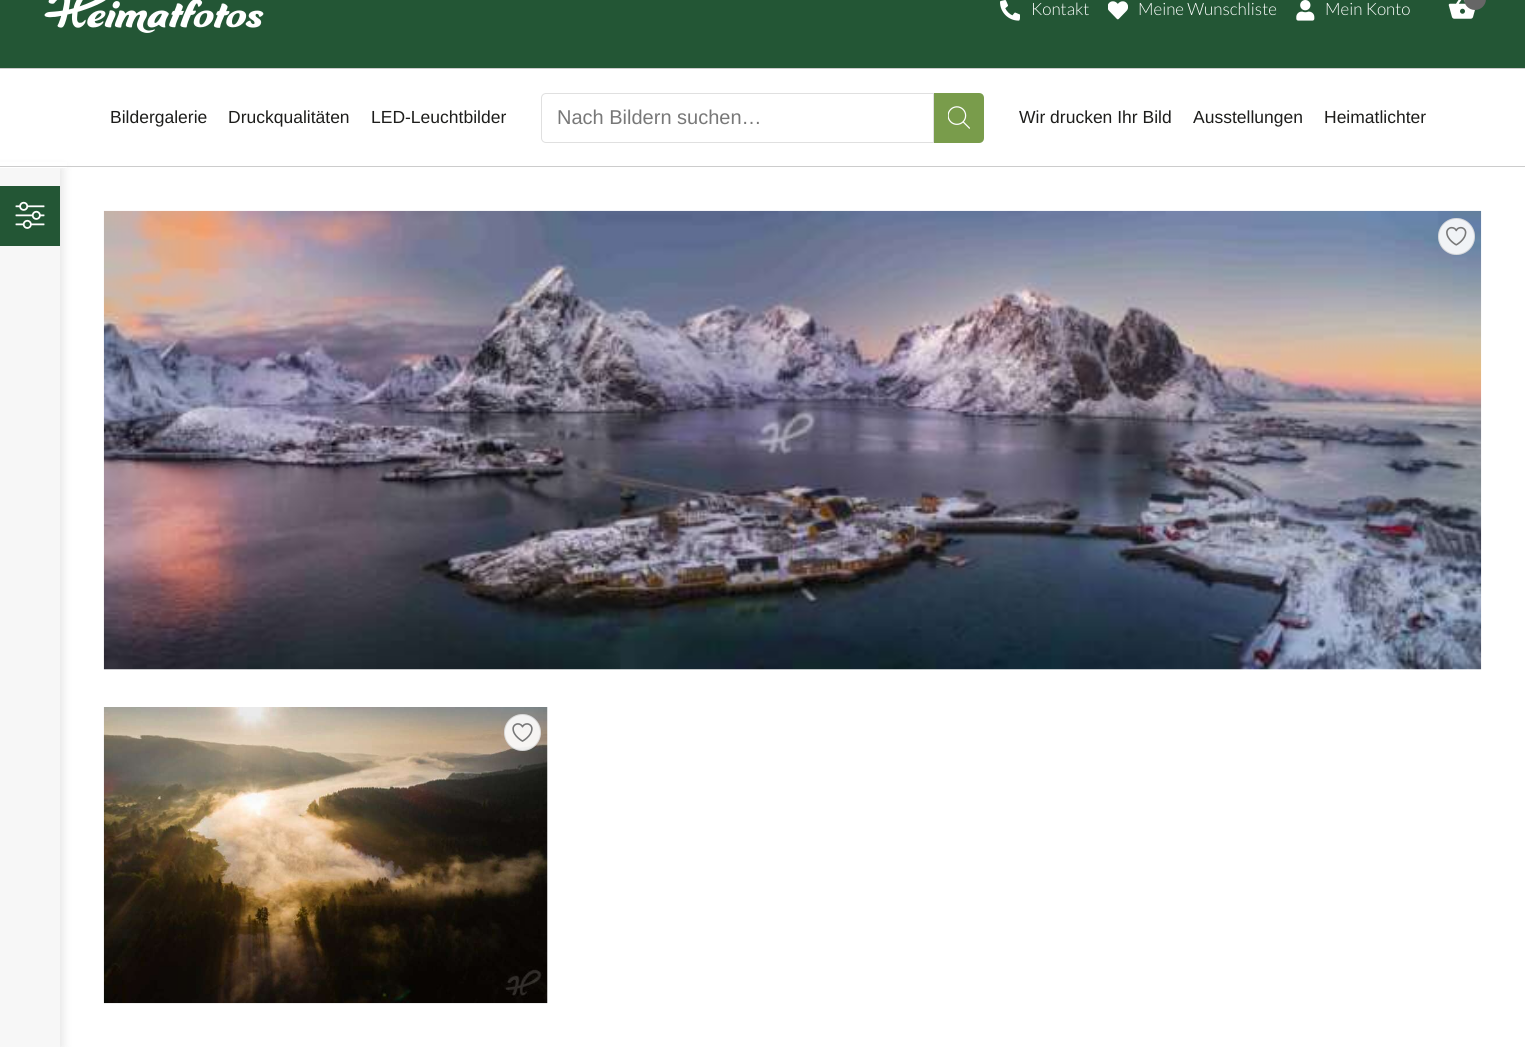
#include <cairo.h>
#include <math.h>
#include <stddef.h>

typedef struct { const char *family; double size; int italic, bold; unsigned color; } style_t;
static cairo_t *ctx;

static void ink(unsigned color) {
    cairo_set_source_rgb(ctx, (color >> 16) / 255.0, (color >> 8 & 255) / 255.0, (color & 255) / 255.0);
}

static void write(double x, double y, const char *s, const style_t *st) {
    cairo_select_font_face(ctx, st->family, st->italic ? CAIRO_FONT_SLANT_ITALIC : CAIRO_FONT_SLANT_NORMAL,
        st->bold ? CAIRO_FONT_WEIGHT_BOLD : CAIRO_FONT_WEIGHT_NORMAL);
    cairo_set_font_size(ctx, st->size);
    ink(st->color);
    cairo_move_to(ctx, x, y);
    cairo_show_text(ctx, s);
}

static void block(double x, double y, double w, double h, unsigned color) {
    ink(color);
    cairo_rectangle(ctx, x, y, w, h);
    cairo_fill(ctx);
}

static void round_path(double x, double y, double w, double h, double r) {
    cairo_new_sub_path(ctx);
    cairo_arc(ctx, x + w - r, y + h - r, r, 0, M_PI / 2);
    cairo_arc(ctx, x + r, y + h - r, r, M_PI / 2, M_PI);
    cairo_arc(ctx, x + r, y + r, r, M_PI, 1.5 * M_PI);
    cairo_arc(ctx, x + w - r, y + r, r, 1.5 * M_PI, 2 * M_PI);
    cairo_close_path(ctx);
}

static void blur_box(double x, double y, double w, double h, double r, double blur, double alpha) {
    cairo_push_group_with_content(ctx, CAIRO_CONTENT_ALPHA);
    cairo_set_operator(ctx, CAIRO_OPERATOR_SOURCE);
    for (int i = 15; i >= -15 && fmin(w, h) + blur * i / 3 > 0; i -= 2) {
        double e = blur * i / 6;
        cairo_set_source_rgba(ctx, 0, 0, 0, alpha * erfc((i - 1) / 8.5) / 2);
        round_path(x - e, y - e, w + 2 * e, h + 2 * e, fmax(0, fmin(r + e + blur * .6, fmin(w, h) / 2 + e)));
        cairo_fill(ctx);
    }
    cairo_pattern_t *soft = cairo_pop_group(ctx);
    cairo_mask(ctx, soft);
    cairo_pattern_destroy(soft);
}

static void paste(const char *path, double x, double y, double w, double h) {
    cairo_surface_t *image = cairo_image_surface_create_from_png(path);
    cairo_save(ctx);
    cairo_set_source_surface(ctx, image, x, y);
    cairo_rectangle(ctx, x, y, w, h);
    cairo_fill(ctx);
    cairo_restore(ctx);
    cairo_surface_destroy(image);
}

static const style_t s1 = {"Lato Light", 17, 0, 0, 0xffffff};
static const style_t s2 = {"Liberation Sans", 17.5, 0, 0, 0x1d1d1b};
static const style_t s3 = {"Liberation Sans", 20, 0, 0, 0x787878};

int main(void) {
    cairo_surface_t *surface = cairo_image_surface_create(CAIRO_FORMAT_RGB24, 1525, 1047);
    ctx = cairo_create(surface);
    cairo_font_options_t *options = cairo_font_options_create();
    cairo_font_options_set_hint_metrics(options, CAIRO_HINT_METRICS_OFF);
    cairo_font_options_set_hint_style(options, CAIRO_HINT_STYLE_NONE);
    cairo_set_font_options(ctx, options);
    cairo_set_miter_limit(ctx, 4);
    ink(0xffffff);
    cairo_paint(ctx);
    ink(0x000000);
    blur_box(-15, 168, 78, 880, 0, 5, 0.1);
    block(0, 162, 67, 6, 0xffffff);
    block(0, 0, 1525, 68, 0x235635);
    paste("pic1.png", 44, 0, 220, 33);
    paste("pic2.png", 1000, 0, 20, 21);
    write(1031, 15, "Kontakt", &s1);
    paste("pic3.png", 1108, 1, 20, 19);
    write(1138, 15, "Meine Wunschliste", &s1);
    paste("pic4.png", 1296, 0, 19, 21);
    write(1325, 15, "Mein Konto", &s1);
    paste("pic5.png", 1448, 0, 28, 19);
    ink(0x666666);
    round_path(1464, -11, 22, 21, 11);
    cairo_fill(ctx);
    block(0, 68, 1525, 1, 0xcccccc);
    block(0, 166, 1525, 1, 0xcccccc);
    write(110, 123, "Bildergalerie", &s2);
    write(228, 123, "Druckqualitäten", &s2);
    write(371, 123, "LED-Leuchtbilder", &s2);
    cairo_new_path(ctx);
    cairo_move_to(ctx, 546, 93.5);
    cairo_line_to(ctx, 933.5, 93.5);
    cairo_line_to(ctx, 933.5, 142.5);
    cairo_line_to(ctx, 546, 142.5);
    cairo_curve_to(ctx, 543.5, 142.5, 541.5, 140.5, 541.5, 138);
    cairo_line_to(ctx, 541.5, 98);
    cairo_curve_to(ctx, 541.5, 95.5, 543.5, 93.5, 546, 93.5);
    cairo_close_path(ctx);
    ink(0xe0e0e0);
    cairo_set_line_width(ctx, 1);
    cairo_stroke(ctx);
    write(557, 124, "Nach Bildern suchen…", &s3);
    ink(0x799c4b);
    cairo_new_path(ctx);
    cairo_move_to(ctx, 934, 93);
    cairo_line_to(ctx, 979, 93);
    cairo_curve_to(ctx, 982, 93, 984, 95, 984, 98);
    cairo_line_to(ctx, 984, 138);
    cairo_curve_to(ctx, 984, 141, 982, 143, 979, 143);
    cairo_line_to(ctx, 934, 143);
    cairo_close_path(ctx);
    cairo_fill(ctx);
    paste("pic6.png", 948, 106, 22, 23);
    write(1019, 123, "Wir drucken Ihr Bild", &s2);
    write(1193, 123, "Ausstellungen", &s2);
    write(1324, 123, "Heimatlichter", &s2);
    block(0, 168, 60, 879, 0xf7f7f7);
    block(0, 186, 60, 60, 0x235635);
    paste("pic7.png", 15, 201, 30, 28);
    paste("pic8.png", 103, 210, 1379, 460);
    cairo_set_source_rgba(ctx, 1, 1, 1, 0.9);
    cairo_arc(ctx, 1456.5, 236.5, 18.5, 0, 2 * M_PI);
    cairo_fill(ctx);
    cairo_arc(ctx, 1456.5, 236.5, 18, 0, 2 * M_PI);
    cairo_set_source_rgba(ctx, 0, 0, 0, 0.12);
    cairo_stroke(ctx);
    paste("pic9.png", 1446, 226, 21, 20);
    paste("pic10.png", 103, 707, 445, 297);
    cairo_set_source_rgba(ctx, 1, 1, 1, 0.9);
    cairo_arc(ctx, 522.5, 732.5, 18.5, 0, 2 * M_PI);
    cairo_fill(ctx);
    cairo_arc(ctx, 522.5, 732.5, 18, 0, 2 * M_PI);
    cairo_set_source_rgba(ctx, 0, 0, 0, 0.12);
    cairo_stroke(ctx);
    paste("pic11.png", 512, 723, 21, 19);
    cairo_surface_write_to_png(surface, "screenshot.png");
    cairo_font_options_destroy(options);
    cairo_destroy(ctx);
    cairo_surface_destroy(surface);
    return 0;
}
